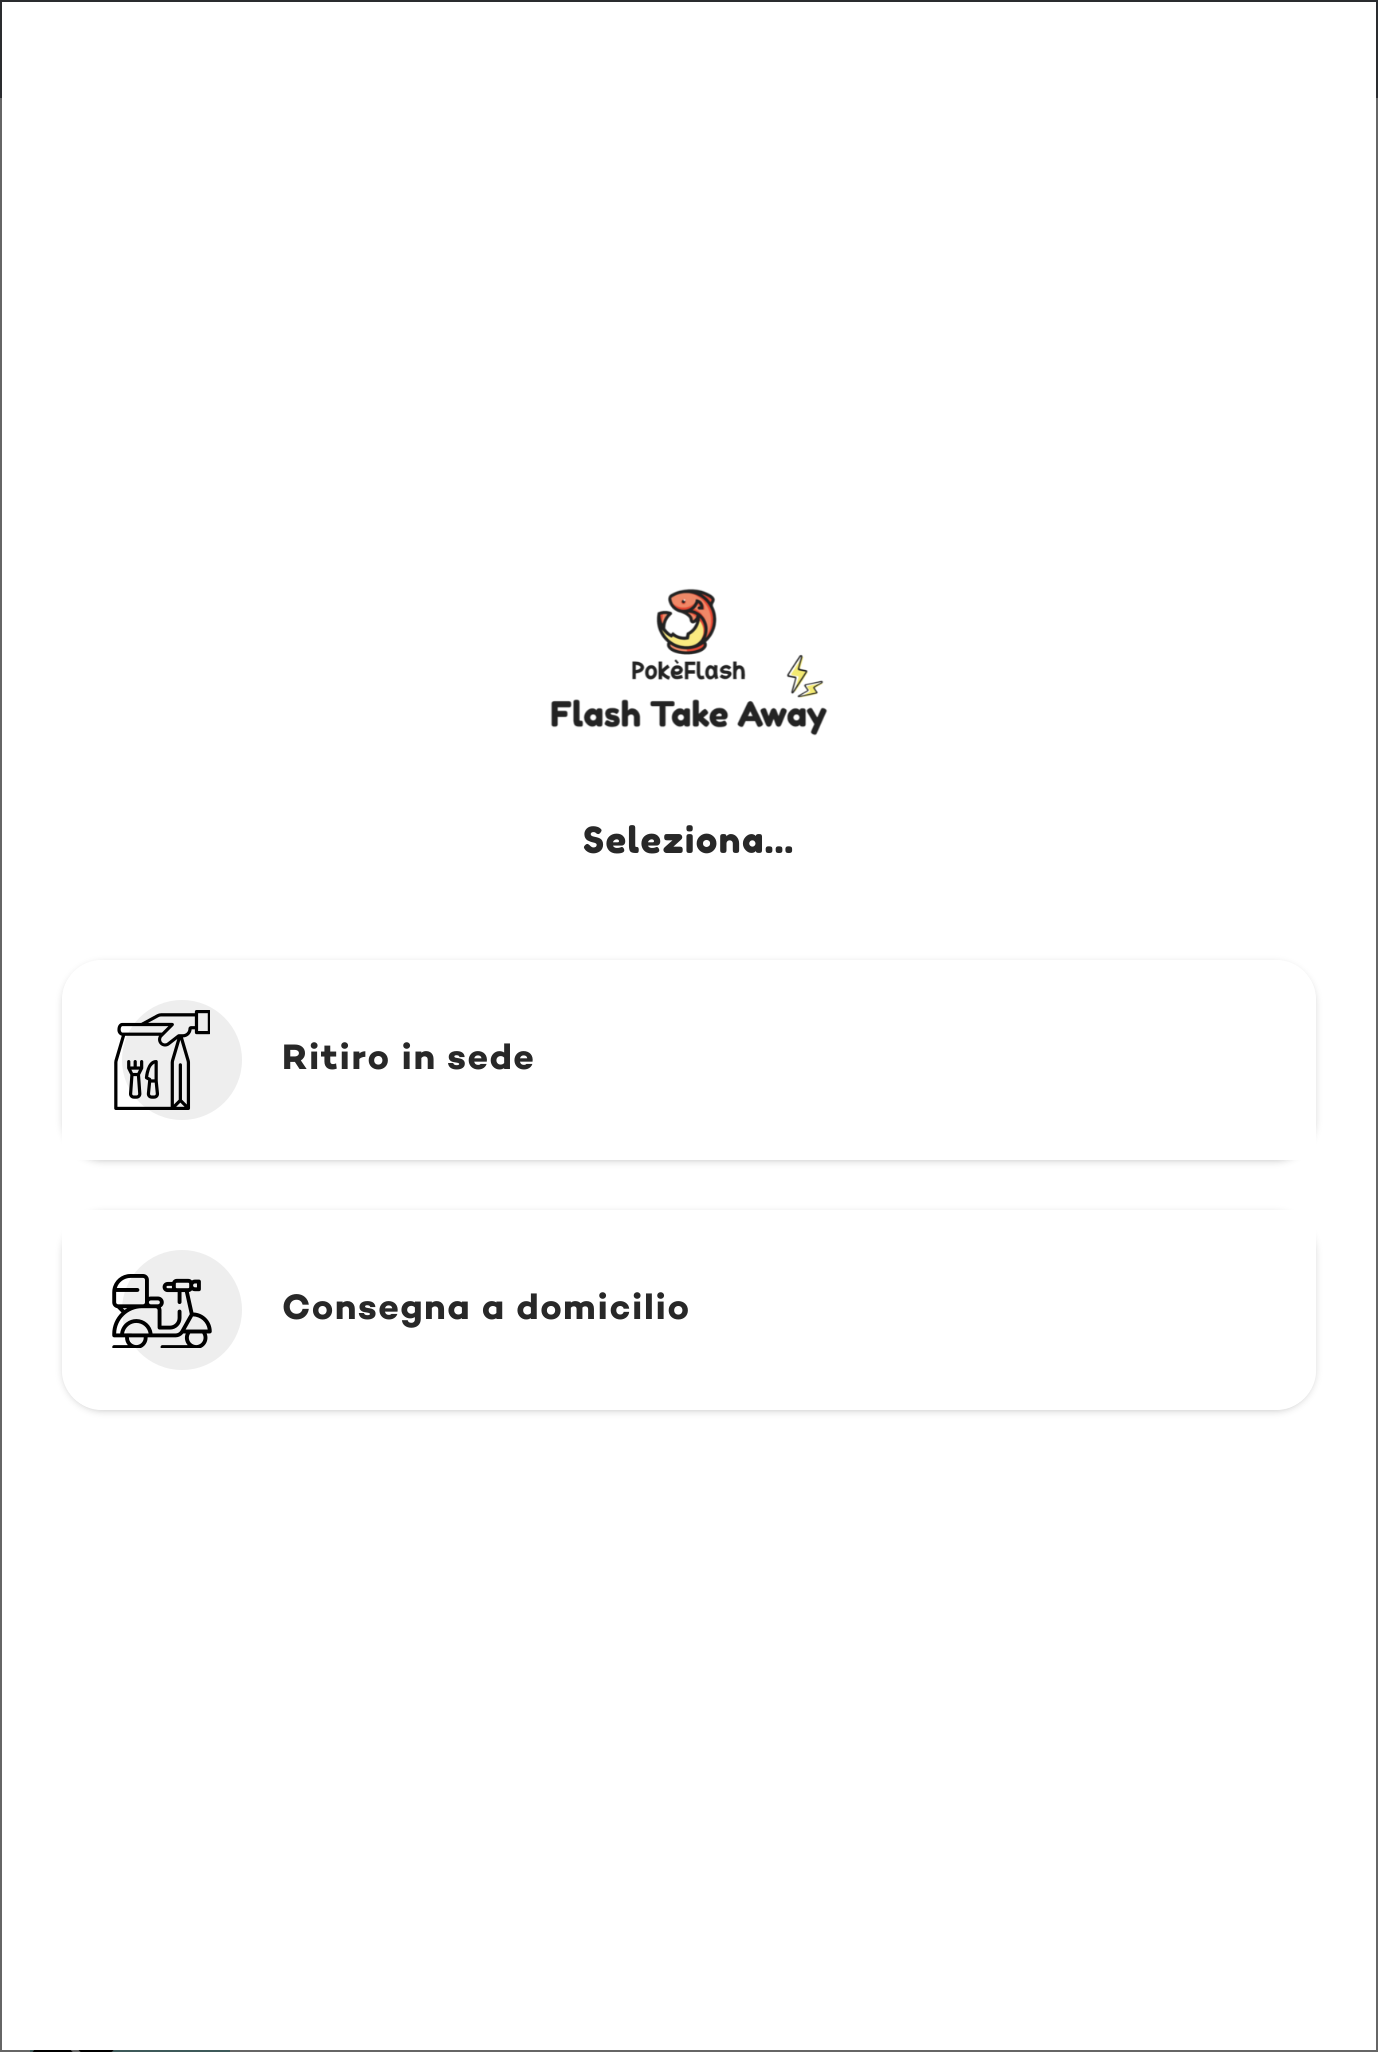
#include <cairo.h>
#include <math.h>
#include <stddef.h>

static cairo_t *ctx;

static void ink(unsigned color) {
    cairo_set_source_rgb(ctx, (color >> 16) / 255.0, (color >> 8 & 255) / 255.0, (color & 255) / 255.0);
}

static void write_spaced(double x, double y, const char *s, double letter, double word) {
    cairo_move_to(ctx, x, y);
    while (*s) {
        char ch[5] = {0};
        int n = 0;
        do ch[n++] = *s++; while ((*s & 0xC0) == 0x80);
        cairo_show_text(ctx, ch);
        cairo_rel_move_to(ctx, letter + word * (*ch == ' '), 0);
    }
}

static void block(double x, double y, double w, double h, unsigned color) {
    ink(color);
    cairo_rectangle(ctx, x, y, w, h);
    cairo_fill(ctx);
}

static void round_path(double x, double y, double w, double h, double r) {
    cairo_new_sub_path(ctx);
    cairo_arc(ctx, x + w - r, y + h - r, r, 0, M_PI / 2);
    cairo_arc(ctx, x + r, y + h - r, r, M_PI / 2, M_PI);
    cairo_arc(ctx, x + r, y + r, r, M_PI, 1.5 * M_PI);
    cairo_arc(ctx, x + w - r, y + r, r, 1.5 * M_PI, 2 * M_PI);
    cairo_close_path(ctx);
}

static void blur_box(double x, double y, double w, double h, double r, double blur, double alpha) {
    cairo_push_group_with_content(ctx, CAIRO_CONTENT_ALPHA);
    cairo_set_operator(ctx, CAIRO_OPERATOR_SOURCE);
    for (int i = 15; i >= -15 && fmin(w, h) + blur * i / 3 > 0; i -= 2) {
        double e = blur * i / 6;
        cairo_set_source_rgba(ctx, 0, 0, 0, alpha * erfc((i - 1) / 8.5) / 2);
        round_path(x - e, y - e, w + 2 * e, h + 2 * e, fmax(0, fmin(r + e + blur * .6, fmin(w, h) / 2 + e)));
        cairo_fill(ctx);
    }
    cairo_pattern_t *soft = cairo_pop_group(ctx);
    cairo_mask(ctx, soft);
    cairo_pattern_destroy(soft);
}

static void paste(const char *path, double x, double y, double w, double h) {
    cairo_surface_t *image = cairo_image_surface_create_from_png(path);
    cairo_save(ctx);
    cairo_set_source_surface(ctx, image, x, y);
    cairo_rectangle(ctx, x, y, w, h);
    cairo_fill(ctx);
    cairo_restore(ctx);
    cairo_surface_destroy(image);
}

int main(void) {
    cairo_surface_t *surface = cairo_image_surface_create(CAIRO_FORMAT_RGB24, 1378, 2052);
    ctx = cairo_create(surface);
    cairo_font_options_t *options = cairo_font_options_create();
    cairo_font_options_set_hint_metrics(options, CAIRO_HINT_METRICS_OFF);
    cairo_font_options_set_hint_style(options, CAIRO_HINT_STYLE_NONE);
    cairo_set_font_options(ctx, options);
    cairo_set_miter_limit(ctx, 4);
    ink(0x808080);
    cairo_paint(ctx);
    block(0, 0, 1378, 98, 0x35373b);
    block(2, 2, 1374, 2048, 0xffffff);
    paste("pic4.png", 30, 2050, 200, 2);
    paste("pic5.png", 32, 2050, 82, 2);
    cairo_rectangle(ctx, 1, 1, 1376, 2050);
    cairo_set_source_rgba(ctx, 0, 0, 0, 0.2);
    cairo_stroke(ctx);
    paste("pic1.png", 550, 588, 278, 148);
    cairo_select_font_face(ctx, "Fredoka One", CAIRO_FONT_SLANT_NORMAL, CAIRO_FONT_WEIGHT_NORMAL);
    cairo_set_font_size(ctx, 36);
    ink(0x282828);
    write_spaced(583, 853, "Seleziona...", 1.4, 0);
    cairo_save(ctx);
    cairo_set_fill_rule(ctx, CAIRO_FILL_RULE_EVEN_ODD);
    cairo_new_path(ctx);
    cairo_move_to(ctx, 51, 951);
    cairo_line_to(ctx, 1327, 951);
    cairo_line_to(ctx, 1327, 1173);
    cairo_line_to(ctx, 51, 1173);
    cairo_close_path(ctx);
    cairo_move_to(ctx, 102, 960);
    cairo_line_to(ctx, 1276, 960);
    cairo_curve_to(ctx, 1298, 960, 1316, 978, 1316, 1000);
    cairo_line_to(ctx, 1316, 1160);
    cairo_line_to(ctx, 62, 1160);
    cairo_line_to(ctx, 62, 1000);
    cairo_curve_to(ctx, 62, 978, 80, 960, 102, 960);
    cairo_close_path(ctx);
    cairo_clip(ctx);
    ink(0xc0c0c0);
    blur_box(64, 964, 1250, 196, 38, 4, 1);
    cairo_restore(ctx);
    ink(0xeeeeee);
    cairo_arc(ctx, 182, 1060, 60, 0, 2 * M_PI);
    cairo_fill(ctx);
    paste("pic2.png", 114, 1010, 96, 100);
    cairo_select_font_face(ctx, "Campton", CAIRO_FONT_SLANT_NORMAL, CAIRO_FONT_WEIGHT_BOLD);
    ink(0x282828);
    write_spaced(282, 1069, "Ritiro in sede", 1.4, 0);
    cairo_save(ctx);
    cairo_set_fill_rule(ctx, CAIRO_FILL_RULE_EVEN_ODD);
    cairo_new_path(ctx);
    cairo_move_to(ctx, 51, 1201);
    cairo_line_to(ctx, 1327, 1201);
    cairo_line_to(ctx, 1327, 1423);
    cairo_line_to(ctx, 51, 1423);
    cairo_close_path(ctx);
    cairo_move_to(ctx, 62, 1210);
    cairo_line_to(ctx, 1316, 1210);
    cairo_line_to(ctx, 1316, 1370);
    cairo_curve_to(ctx, 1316, 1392, 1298, 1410, 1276, 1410);
    cairo_line_to(ctx, 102, 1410);
    cairo_curve_to(ctx, 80, 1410, 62, 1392, 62, 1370);
    cairo_close_path(ctx);
    cairo_clip(ctx);
    ink(0xc0c0c0);
    blur_box(64, 1214, 1250, 196, 38, 4, 1);
    cairo_restore(ctx);
    ink(0xeeeeee);
    cairo_arc(ctx, 182, 1310, 60, 0, 2 * M_PI);
    cairo_fill(ctx);
    paste("pic3.png", 112, 1274, 100, 74);
    ink(0x282828);
    write_spaced(282, 1319, "Consegna a domicilio", 1.4, 0);
    cairo_surface_write_to_png(surface, "screenshot.png");
    cairo_font_options_destroy(options);
    cairo_destroy(ctx);
    cairo_surface_destroy(surface);
    return 0;
}
